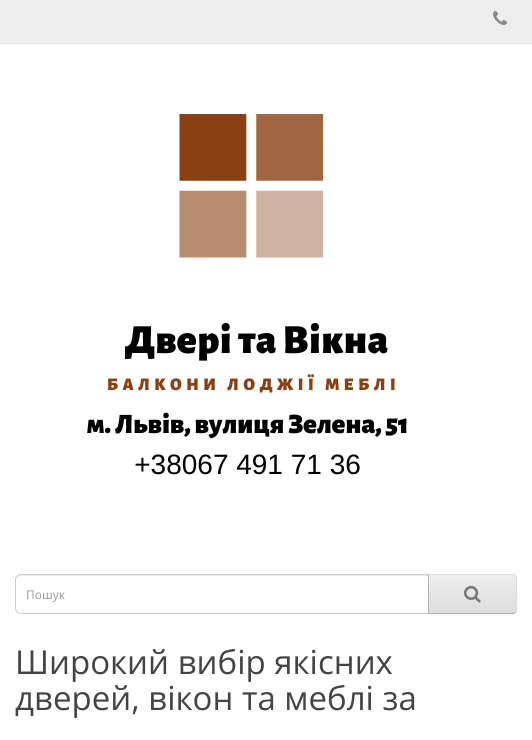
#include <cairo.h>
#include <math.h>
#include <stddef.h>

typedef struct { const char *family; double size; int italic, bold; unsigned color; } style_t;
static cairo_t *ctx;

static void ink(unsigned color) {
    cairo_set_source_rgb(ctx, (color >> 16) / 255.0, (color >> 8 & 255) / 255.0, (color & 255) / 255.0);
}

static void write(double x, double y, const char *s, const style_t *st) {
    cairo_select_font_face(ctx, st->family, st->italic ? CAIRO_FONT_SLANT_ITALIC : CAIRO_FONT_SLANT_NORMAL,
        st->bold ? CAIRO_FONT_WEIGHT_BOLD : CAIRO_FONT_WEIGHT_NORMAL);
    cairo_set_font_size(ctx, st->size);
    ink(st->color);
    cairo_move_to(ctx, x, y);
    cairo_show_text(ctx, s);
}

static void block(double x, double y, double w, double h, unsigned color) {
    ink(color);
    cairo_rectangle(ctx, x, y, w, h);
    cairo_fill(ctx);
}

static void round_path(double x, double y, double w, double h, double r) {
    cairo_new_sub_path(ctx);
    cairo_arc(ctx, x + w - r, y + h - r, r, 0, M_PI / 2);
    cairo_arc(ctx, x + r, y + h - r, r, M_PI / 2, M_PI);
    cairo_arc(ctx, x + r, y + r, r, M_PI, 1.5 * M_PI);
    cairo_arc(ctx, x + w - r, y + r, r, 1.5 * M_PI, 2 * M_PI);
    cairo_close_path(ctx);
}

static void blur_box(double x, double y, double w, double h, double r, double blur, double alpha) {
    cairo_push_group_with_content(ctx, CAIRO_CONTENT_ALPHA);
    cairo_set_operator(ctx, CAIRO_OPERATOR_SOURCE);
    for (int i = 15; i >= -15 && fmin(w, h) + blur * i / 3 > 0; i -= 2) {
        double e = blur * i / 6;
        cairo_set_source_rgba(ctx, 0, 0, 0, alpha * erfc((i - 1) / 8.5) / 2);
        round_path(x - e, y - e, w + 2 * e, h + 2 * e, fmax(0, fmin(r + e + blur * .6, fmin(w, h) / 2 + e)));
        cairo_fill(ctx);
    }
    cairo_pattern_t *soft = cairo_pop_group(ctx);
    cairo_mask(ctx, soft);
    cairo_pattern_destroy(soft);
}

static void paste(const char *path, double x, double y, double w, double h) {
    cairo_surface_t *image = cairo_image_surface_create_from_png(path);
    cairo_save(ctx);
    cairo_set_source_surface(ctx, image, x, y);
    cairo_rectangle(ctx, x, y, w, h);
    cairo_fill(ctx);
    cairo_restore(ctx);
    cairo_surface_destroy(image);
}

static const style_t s1 = {"Open Sans", 12, 0, 0, 0x999999};
static const style_t s2 = {"Open Sans", 33, 0, 0, 0x444444};

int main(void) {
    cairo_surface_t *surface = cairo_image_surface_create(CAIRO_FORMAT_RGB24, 532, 740);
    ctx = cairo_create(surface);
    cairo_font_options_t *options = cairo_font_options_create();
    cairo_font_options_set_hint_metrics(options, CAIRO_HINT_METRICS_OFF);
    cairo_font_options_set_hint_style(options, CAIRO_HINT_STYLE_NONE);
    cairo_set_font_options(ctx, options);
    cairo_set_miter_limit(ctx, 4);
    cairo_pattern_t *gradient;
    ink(0xffffff);
    cairo_paint(ctx);
    block(0, 0, 532, 43, 0xeeeeee);
    block(0, 43, 532, 1, 0xe2e2e2);
    paste("pic1.png", 493, 10, 15, 15);
    paste("pic2.png", 87, 114, 320, 361);
    ink(0xececec);
    cairo_new_path(ctx);
    cairo_move_to(ctx, 21, 576);
    cairo_line_to(ctx, 428, 576);
    cairo_line_to(ctx, 428, 575);
    cairo_line_to(ctx, 21, 575);
    cairo_curve_to(ctx, 18, 575, 16, 578, 16, 581);
    cairo_curve_to(ctx, 16, 578, 18, 576, 21, 576);
    cairo_close_path(ctx);
    cairo_fill(ctx);
    cairo_new_path(ctx);
    cairo_move_to(ctx, 21, 574.5);
    cairo_line_to(ctx, 428.5, 574.5);
    cairo_line_to(ctx, 428.5, 613.5);
    cairo_line_to(ctx, 21, 613.5);
    cairo_curve_to(ctx, 18, 613.5, 15.5, 611, 15.5, 608);
    cairo_line_to(ctx, 15.5, 580);
    cairo_curve_to(ctx, 15.5, 577, 18, 574.5, 21, 574.5);
    cairo_close_path(ctx);
    ink(0xcccccc);
    cairo_set_line_width(ctx, 1);
    cairo_stroke(ctx);
    write(26, 599, "Пошук", &s1);
    ink(0x000000);
    blur_box(428, 575, 89, 40, 4, 1, 0.05);
    ink(0xe7e7e7);
    cairo_new_path(ctx);
    cairo_move_to(ctx, 428, 574);
    cairo_line_to(ctx, 513, 574);
    cairo_curve_to(ctx, 515, 574, 517, 576, 517, 578);
    cairo_line_to(ctx, 517, 610);
    cairo_curve_to(ctx, 517, 612, 515, 614, 513, 614);
    cairo_line_to(ctx, 428, 614);
    cairo_close_path(ctx);
    cairo_fill(ctx);
    cairo_save(ctx);
    cairo_new_path(ctx);
    cairo_move_to(ctx, 428, 574);
    cairo_line_to(ctx, 513, 574);
    cairo_curve_to(ctx, 515, 574, 517, 576, 517, 578);
    cairo_line_to(ctx, 517, 610);
    cairo_curve_to(ctx, 517, 612, 515, 614, 513, 614);
    cairo_line_to(ctx, 428, 614);
    cairo_close_path(ctx);
    cairo_clip(ctx);
    gradient = cairo_pattern_create_linear(473, 575, 473, 613);
    cairo_pattern_add_color_stop_rgba(gradient, 0, 0.933, 0.933, 0.933, 1);
    cairo_pattern_add_color_stop_rgba(gradient, 1, 0.867, 0.867, 0.867, 1);
    cairo_set_source(ctx, gradient);
    cairo_pattern_destroy(gradient);
    cairo_rectangle(ctx, 429, 575, 88, 38);
    cairo_fill(ctx);
    cairo_restore(ctx);
    ink(0xf1f1f1);
    cairo_new_path(ctx);
    cairo_move_to(ctx, 429, 576);
    cairo_line_to(ctx, 513, 576);
    cairo_curve_to(ctx, 515, 576, 516, 577, 516, 579);
    cairo_line_to(ctx, 516, 578);
    cairo_curve_to(ctx, 516, 576, 515, 575, 513, 575);
    cairo_line_to(ctx, 429, 575);
    cairo_close_path(ctx);
    cairo_fill(ctx);
    ink(0xdddddd);
    cairo_new_path(ctx);
    cairo_move_to(ctx, 428, 574);
    cairo_line_to(ctx, 429, 575);
    cairo_line_to(ctx, 513, 575);
    cairo_line_to(ctx, 515, 576);
    cairo_line_to(ctx, 516, 575);
    cairo_line_to(ctx, 513, 574);
    cairo_close_path(ctx);
    cairo_fill(ctx);
    cairo_new_path(ctx);
    cairo_move_to(ctx, 517, 610);
    cairo_line_to(ctx, 517, 578);
    cairo_curve_to(ctx, 517, 577, 516.5, 576, 516, 575);
    cairo_line_to(ctx, 515, 576);
    cairo_curve_to(ctx, 516, 576, 516, 577, 516, 578);
    cairo_line_to(ctx, 516, 610);
    cairo_curve_to(ctx, 516, 611, 516, 612, 515, 612);
    cairo_line_to(ctx, 516, 613);
    cairo_curve_to(ctx, 516.5, 612, 517, 611, 517, 610);
    cairo_close_path(ctx);
    cairo_fill(ctx);
    ink(0xb3b3b3);
    cairo_new_path(ctx);
    cairo_move_to(ctx, 513, 614);
    cairo_line_to(ctx, 516, 613);
    cairo_line_to(ctx, 515, 612);
    cairo_line_to(ctx, 513, 613);
    cairo_line_to(ctx, 429, 613);
    cairo_line_to(ctx, 428, 614);
    cairo_close_path(ctx);
    cairo_fill(ctx);
    ink(0xb7b7b7);
    cairo_new_path(ctx);
    cairo_move_to(ctx, 428, 574);
    cairo_line_to(ctx, 428, 614);
    cairo_line_to(ctx, 429, 613);
    cairo_line_to(ctx, 429, 575);
    cairo_close_path(ctx);
    cairo_fill(ctx);
    paste("pic3.png", 464, 585, 17, 18);
    write(15, 674, "Широкий вибір якісних", &s2);
    write(15, 710, "дверей, вікон та меблі за", &s2);
    cairo_surface_write_to_png(surface, "screenshot.png");
    cairo_font_options_destroy(options);
    cairo_destroy(ctx);
    cairo_surface_destroy(surface);
    return 0;
}
